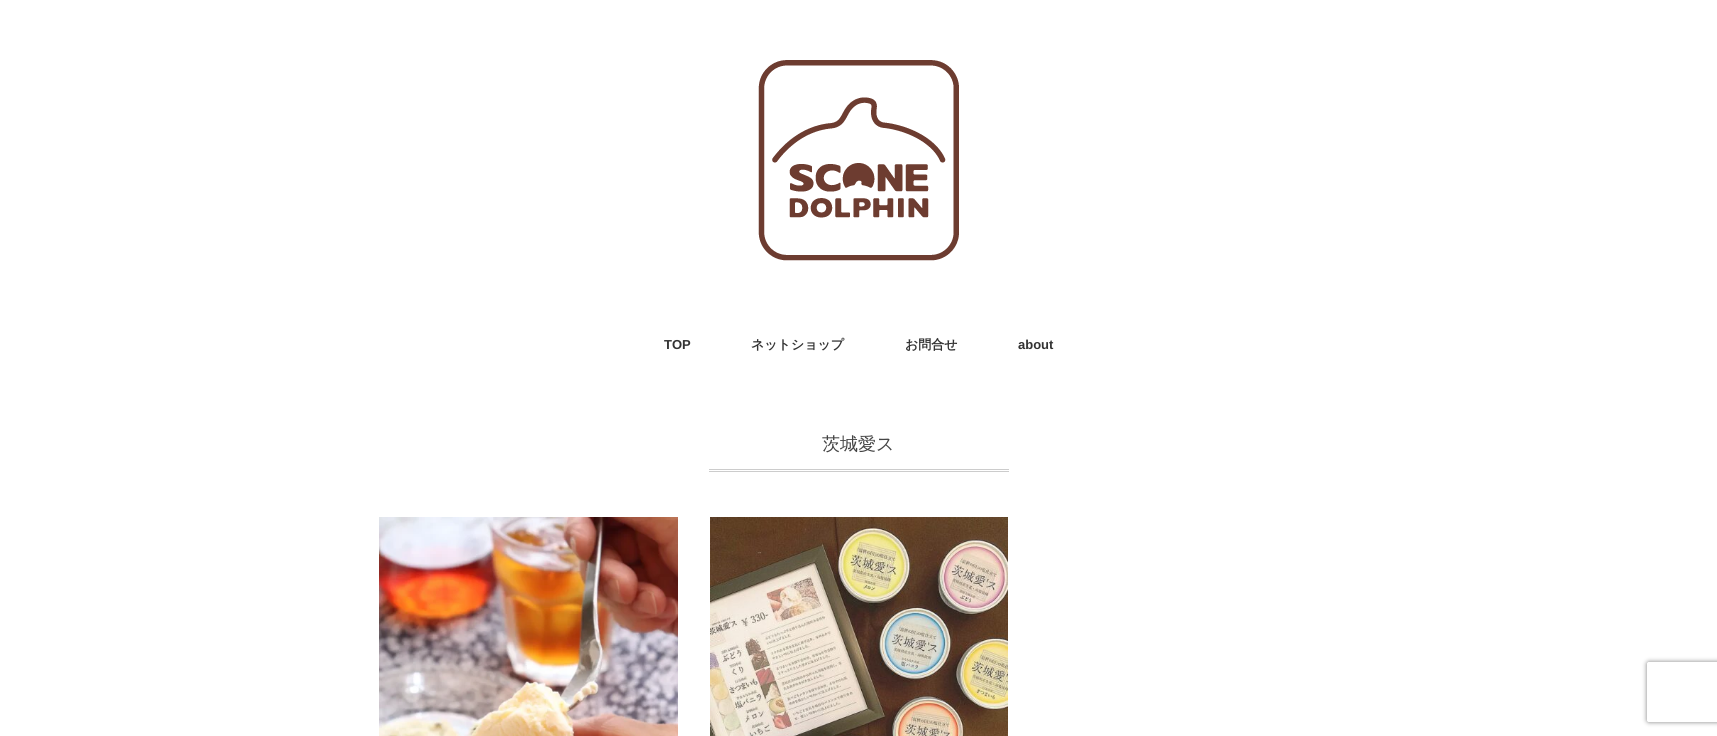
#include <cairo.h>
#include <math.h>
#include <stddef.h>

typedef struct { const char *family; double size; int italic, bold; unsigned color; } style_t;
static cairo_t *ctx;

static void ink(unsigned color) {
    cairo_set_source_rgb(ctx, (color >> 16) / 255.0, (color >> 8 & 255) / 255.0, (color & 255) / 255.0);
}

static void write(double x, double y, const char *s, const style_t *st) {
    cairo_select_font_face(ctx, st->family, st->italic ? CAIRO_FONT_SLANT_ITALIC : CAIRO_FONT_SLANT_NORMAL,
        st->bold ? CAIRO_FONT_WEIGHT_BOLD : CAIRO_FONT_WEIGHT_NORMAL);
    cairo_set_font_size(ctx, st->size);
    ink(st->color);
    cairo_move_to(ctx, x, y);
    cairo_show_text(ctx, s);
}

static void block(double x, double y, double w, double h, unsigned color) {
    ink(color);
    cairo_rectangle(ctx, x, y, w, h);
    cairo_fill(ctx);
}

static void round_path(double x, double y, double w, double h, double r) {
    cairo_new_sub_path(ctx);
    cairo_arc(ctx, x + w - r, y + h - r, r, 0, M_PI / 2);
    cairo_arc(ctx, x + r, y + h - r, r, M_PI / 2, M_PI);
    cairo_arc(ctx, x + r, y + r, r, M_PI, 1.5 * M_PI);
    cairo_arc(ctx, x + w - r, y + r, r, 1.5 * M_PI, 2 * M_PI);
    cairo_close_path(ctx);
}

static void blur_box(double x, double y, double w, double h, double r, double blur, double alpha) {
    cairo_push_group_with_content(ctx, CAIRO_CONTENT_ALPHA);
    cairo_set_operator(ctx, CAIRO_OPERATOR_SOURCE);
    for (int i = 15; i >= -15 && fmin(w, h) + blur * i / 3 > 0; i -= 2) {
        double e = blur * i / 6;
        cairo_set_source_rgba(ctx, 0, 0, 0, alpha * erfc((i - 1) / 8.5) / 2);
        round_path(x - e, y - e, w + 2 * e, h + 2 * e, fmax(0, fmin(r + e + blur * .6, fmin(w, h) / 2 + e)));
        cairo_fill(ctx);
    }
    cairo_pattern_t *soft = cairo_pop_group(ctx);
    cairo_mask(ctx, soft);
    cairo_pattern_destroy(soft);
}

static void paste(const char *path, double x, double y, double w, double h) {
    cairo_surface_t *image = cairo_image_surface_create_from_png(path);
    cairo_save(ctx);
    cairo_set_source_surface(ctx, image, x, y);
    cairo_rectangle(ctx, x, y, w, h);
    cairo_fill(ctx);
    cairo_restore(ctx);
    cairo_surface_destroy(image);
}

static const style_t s1 = {"Liberation Sans", 13, 0, 1, 0x333333};
static const style_t s2 = {"WenQuanYi Zen Hei", 13, 0, 1, 0x333333};
static const style_t s3 = {"WenQuanYi Zen Hei Medium", 18, 0, 0, 0x444444};

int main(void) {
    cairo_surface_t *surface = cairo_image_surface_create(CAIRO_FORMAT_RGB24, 1717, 736);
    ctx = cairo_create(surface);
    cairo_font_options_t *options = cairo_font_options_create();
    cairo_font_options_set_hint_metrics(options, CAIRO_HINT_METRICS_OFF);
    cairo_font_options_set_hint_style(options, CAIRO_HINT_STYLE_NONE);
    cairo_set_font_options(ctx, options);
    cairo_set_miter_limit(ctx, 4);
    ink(0xffffff);
    cairo_paint(ctx);
    paste("pic1.png", 758, 60, 201, 201);
    write(664, 349, "TOP", &s1);
    write(751, 349, "ネットショップ", &s2);
    write(905, 349, "お問合せ", &s2);
    write(1018, 349, "about", &s1);
    block(709, 469, 300, 1, 0xcccccc);
    block(709, 471, 300, 1, 0xcccccc);
    write(822, 450, "茨城愛ス", &s3);
    paste("pic2.png", 379, 517, 299, 219);
    paste("pic3.png", 710, 517, 298, 219);
    cairo_save(ctx);
    cairo_set_fill_rule(ctx, CAIRO_FILL_RULE_EVEN_ODD);
    cairo_new_path(ctx);
    cairo_move_to(ctx, 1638, 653);
    cairo_line_to(ctx, 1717, 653);
    cairo_line_to(ctx, 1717, 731);
    cairo_line_to(ctx, 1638, 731);
    cairo_close_path(ctx);
    cairo_move_to(ctx, 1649, 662);
    cairo_line_to(ctx, 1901, 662);
    cairo_curve_to(ctx, 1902, 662, 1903, 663, 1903, 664);
    cairo_line_to(ctx, 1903, 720);
    cairo_curve_to(ctx, 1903, 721, 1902, 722, 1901, 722);
    cairo_line_to(ctx, 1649, 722);
    cairo_curve_to(ctx, 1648, 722, 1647, 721, 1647, 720);
    cairo_line_to(ctx, 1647, 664);
    cairo_curve_to(ctx, 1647, 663, 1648, 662, 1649, 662);
    cairo_close_path(ctx);
    cairo_clip(ctx);
    ink(0x808080);
    blur_box(1647, 662, 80, 60, 2, 2.5, 1);
    cairo_restore(ctx);
    cairo_surface_write_to_png(surface, "screenshot.png");
    cairo_font_options_destroy(options);
    cairo_destroy(ctx);
    cairo_surface_destroy(surface);
    return 0;
}
